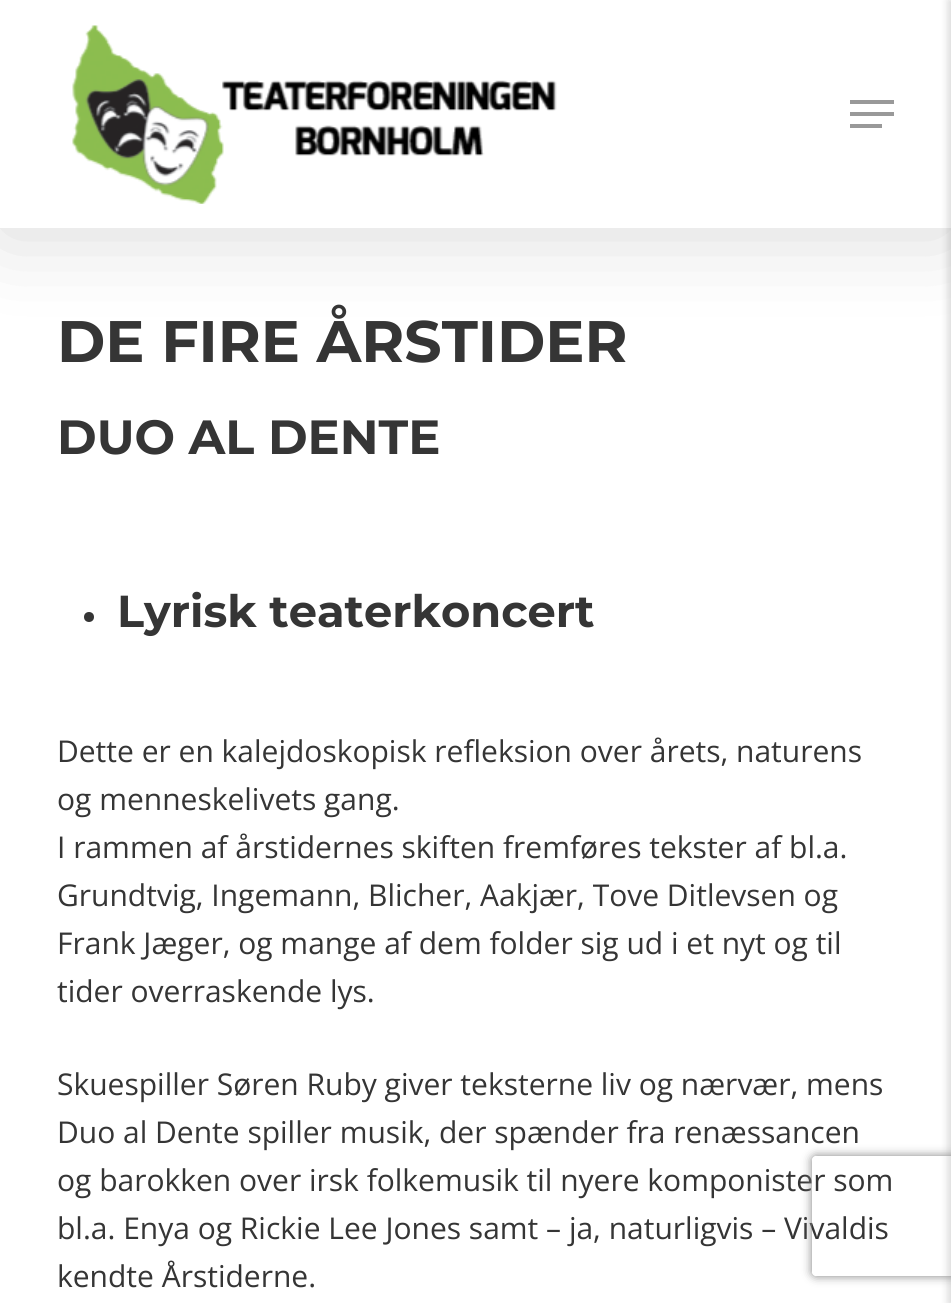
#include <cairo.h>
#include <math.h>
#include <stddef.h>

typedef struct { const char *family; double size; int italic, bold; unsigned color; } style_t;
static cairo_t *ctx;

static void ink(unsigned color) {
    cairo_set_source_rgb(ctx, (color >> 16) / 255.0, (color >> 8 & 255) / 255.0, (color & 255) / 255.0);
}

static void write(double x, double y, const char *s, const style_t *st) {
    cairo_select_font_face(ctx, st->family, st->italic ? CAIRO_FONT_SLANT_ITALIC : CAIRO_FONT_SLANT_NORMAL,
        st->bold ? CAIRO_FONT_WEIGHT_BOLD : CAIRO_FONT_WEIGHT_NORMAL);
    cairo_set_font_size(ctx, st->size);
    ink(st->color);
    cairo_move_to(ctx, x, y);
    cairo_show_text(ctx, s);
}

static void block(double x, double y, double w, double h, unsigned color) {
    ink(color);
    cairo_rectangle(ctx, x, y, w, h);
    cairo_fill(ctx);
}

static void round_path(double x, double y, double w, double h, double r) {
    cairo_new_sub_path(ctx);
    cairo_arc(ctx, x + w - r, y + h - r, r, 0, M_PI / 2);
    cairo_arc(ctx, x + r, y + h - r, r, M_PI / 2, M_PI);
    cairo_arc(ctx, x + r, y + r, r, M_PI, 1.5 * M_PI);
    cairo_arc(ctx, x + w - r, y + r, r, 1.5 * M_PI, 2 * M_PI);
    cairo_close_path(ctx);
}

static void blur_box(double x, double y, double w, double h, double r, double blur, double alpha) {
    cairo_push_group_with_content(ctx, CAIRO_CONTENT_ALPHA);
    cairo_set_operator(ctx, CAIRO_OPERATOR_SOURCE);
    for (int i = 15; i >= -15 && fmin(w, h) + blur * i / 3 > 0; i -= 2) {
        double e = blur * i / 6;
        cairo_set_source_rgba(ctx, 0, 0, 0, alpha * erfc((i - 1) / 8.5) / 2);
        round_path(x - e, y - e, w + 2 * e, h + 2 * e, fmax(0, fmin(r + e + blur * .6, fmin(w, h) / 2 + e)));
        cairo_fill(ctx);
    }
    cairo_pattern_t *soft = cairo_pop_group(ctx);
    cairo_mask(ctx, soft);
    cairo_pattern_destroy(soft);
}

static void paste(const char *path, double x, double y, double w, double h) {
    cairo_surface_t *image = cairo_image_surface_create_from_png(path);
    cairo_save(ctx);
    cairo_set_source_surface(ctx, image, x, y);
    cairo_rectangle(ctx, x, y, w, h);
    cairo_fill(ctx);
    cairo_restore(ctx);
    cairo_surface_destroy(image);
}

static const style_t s1 = {"Montserrat", 58.5, 0, 1, 0x353535};
static const style_t s2 = {"Montserrat", 48, 0, 1, 0x353535};
static const style_t s3 = {"Montserrat", 44.75, 0, 1, 0x353535};
static const style_t s4 = {"Open Sans", 30, 0, 0, 0x353535};

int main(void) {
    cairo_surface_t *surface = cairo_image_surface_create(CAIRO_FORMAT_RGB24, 951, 1303);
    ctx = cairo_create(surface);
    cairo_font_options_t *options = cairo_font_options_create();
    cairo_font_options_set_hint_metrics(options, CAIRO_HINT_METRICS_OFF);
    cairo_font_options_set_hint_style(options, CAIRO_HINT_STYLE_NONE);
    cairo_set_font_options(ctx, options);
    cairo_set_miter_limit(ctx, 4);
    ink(0xffffff);
    cairo_paint(ctx);
    ink(0x000000);
    blur_box(0, 6, 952, 228, 0, 45, 0.15);
    block(0, 0, 951, 228, 0xffffff);
    paste("pic1.png", 72, 25, 485, 179);
    block(850, 100, 44, 4, 0x999999);
    block(850, 124, 32, 4, 0x999999);
    block(850, 112, 44, 4, 0x999999);
    write(57, 362, "DE FIRE ÅRSTIDER", &s1);
    write(57, 454, "DUO AL DENTE", &s2);
    cairo_new_path(ctx);
    cairo_arc(ctx, 89, 617, 5, 0, 2 * M_PI);
    cairo_fill(ctx);
    write(117, 627, "Lyrisk teaterkoncert", &s3);
    write(57, 762, "Dette er en kalejdoskopisk refleksion over årets, naturens", &s4);
    write(57, 810, "og menneskelivets gang.", &s4);
    write(57, 858, "I rammen af årstidernes skiften fremføres tekster af bl.a.", &s4);
    write(57, 906, "Grundtvig, Ingemann, Blicher, Aakjær, Tove Ditlevsen og", &s4);
    write(57, 954, "Frank Jæger, og mange af dem folder sig ud i et nyt og til", &s4);
    write(57, 1002, "tider overraskende lys.", &s4);
    write(57, 1095, "Skuespiller Søren Ruby giver teksterne liv og nærvær, mens", &s4);
    write(57, 1143, "Duo al Dente spiller musik, der spænder fra renæssancen", &s4);
    write(57, 1191, "og barokken over irsk folkemusik til nyere komponister som", &s4);
    write(57, 1239, "bl.a. Enya og Rickie Lee Jones samt – ja, naturligvis – Vivaldis", &s4);
    write(57, 1287, "kendte Årstiderne.", &s4);
    ink(0x000000);
    blur_box(948, 0, 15, 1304, 0, 4, 0.15);
    cairo_save(ctx);
    cairo_set_fill_rule(ctx, CAIRO_FILL_RULE_EVEN_ODD);
    cairo_new_path(ctx);
    cairo_move_to(ctx, 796, 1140);
    cairo_line_to(ctx, 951, 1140);
    cairo_line_to(ctx, 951, 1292);
    cairo_line_to(ctx, 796, 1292);
    cairo_close_path(ctx);
    cairo_move_to(ctx, 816, 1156);
    cairo_line_to(ctx, 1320, 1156);
    cairo_curve_to(ctx, 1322, 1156, 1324, 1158, 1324, 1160);
    cairo_line_to(ctx, 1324, 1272);
    cairo_curve_to(ctx, 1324, 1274, 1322, 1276, 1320, 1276);
    cairo_line_to(ctx, 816, 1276);
    cairo_curve_to(ctx, 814, 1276, 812, 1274, 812, 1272);
    cairo_line_to(ctx, 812, 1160);
    cairo_curve_to(ctx, 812, 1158, 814, 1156, 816, 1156);
    cairo_close_path(ctx);
    cairo_clip(ctx);
    ink(0x808080);
    blur_box(812, 1156, 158, 120, 4, 5, 1);
    cairo_restore(ctx);
    cairo_surface_write_to_png(surface, "screenshot.png");
    cairo_font_options_destroy(options);
    cairo_destroy(ctx);
    cairo_surface_destroy(surface);
    return 0;
}
